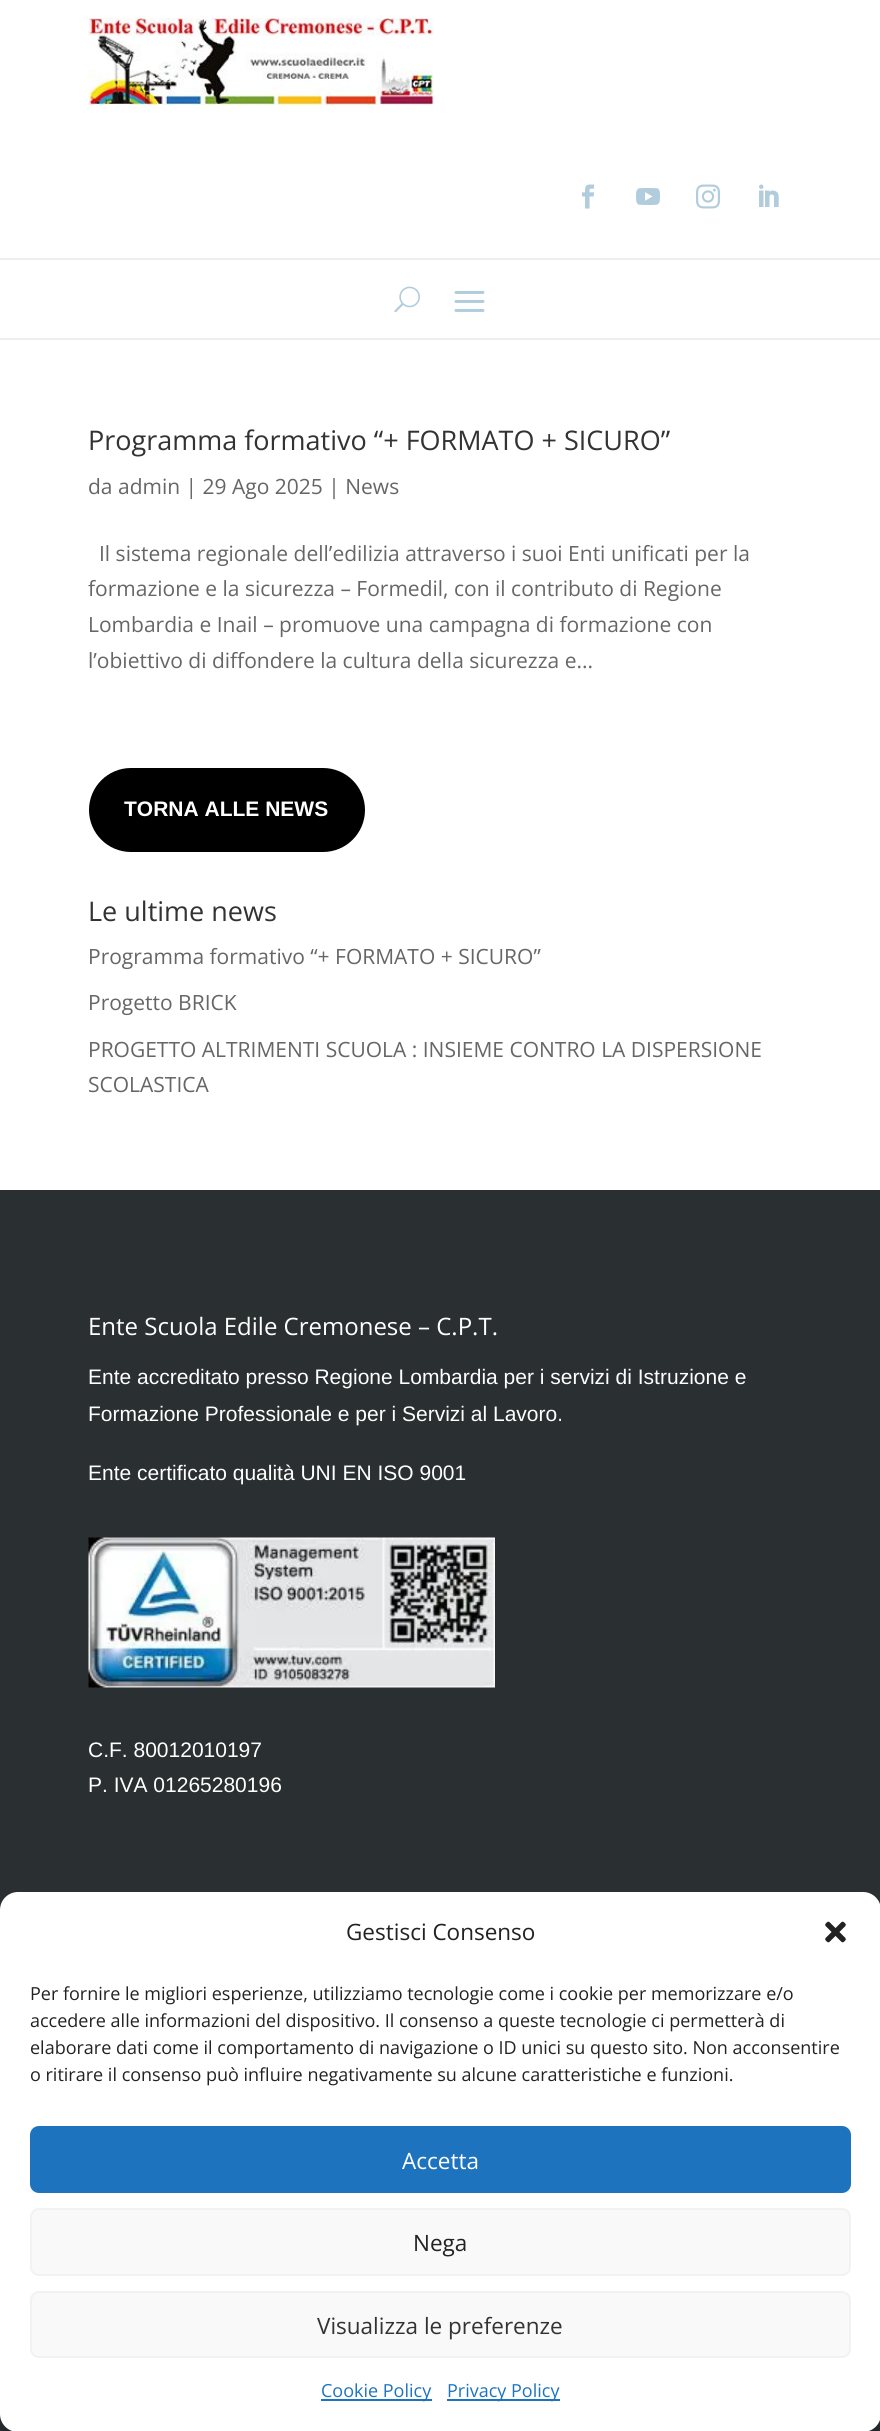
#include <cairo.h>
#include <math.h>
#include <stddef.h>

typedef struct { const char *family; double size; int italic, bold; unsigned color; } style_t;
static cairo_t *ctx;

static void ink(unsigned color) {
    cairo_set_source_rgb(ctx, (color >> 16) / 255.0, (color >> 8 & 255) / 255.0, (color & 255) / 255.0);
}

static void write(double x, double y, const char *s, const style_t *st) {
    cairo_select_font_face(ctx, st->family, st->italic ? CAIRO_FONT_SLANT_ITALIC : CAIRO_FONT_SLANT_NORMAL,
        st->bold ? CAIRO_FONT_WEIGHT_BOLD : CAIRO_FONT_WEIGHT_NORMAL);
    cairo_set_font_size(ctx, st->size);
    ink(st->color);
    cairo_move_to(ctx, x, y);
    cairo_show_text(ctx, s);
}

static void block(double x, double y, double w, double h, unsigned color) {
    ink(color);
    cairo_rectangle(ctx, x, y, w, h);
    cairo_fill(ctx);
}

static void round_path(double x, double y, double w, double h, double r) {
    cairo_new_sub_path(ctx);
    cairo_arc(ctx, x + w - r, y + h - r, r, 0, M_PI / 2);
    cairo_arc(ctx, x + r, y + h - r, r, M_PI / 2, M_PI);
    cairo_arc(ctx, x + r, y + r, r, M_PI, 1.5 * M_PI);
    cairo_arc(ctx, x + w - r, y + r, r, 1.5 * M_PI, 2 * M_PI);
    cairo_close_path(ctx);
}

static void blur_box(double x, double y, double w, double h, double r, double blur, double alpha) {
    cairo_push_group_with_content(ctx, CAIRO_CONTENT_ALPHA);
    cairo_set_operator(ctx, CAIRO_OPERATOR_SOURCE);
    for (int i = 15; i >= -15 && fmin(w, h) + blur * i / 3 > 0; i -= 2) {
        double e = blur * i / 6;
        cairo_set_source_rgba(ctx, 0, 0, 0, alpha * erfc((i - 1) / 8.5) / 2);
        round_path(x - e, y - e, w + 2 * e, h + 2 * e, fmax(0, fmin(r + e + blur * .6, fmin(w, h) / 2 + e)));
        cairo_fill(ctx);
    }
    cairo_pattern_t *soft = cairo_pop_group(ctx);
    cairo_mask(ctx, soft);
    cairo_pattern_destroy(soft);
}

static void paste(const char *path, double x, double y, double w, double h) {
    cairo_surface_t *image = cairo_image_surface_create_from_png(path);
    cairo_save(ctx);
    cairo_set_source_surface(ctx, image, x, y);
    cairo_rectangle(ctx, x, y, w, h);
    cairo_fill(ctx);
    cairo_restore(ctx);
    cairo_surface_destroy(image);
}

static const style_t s1 = {"Open Sans", 27, 0, 0, 0x333333};
static const style_t s2 = {"Open Sans", 21, 0, 0, 0x666666};
static const style_t s3 = {"Liberation Sans", 21, 0, 1, 0xffffff};
static const style_t s4 = {"Open Sans", 24, 0, 0, 0xffffff};
static const style_t s5 = {"Liberation Sans", 21, 0, 0, 0xffffff};
static const style_t s6 = {"Open Sans", 22.5, 0, 0, 0x222222};
static const style_t s7 = {"Open Sans", 18, 0, 0, 0x222222};
static const style_t s8 = {"Open Sans", 22.5, 0, 0, 0xffffff};
static const style_t s9 = {"Open Sans", 22.5, 0, 0, 0x333333};
static const style_t s10 = {"Open Sans", 18, 0, 0, 0x1e73be};

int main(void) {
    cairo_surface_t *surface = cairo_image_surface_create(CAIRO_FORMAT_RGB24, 880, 2431);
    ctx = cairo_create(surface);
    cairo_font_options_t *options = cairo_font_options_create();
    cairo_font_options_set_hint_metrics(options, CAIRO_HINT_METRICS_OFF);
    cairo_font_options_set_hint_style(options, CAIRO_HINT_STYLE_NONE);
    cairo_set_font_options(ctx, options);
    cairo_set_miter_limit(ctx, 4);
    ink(0xffffff);
    cairo_paint(ctx);
    paste("pic1.png", 88, 18, 346, 87);
    paste("pic2.png", 582, 184, 12, 25);
    paste("pic3.png", 636, 188, 24, 17);
    paste("pic4.png", 696, 184, 24, 25);
    paste("pic5.png", 759, 184, 20, 23);
    block(0, 258, 880, 2, 0xeeeeee);
    block(0, 338, 880, 2, 0xeeeeee);
    paste("pic6.png", 394, 286, 26, 27);
    paste("pic7.png", 454, 290, 31, 22);
    write(88, 450, "Programma formativo “+ FORMATO + SICURO”", &s1);
    write(88, 494, "da admin | 29 Ago 2025 | News", &s2);
    write(99, 561, "Il sistema regionale dell’edilizia attraverso i suoi Enti unificati per la", &s2);
    write(88, 596, "formazione e la sicurezza – Formedil, con il contributo di Regione", &s2);
    write(88, 632, "Lombardia e Inail – promuove una campagna di formazione con", &s2);
    write(88, 668, "l’obiettivo di diffondere la cultura della sicurezza e...", &s2);
    ink(0x000000);
    round_path(89, 768, 276, 84, 42);
    cairo_fill(ctx);
    write(124, 816, "TORNA ALLE NEWS", &s3);
    write(88, 921, "Le ultime news", &s1);
    write(88, 964, "Programma formativo “+ FORMATO + SICURO”", &s2);
    write(88, 1010, "Progetto BRICK", &s2);
    write(88, 1057, "PROGETTO ALTRIMENTI SCUOLA : INSIEME CONTRO LA DISPERSIONE", &s2);
    write(88, 1092, "SCOLASTICA", &s2);
    block(0, 1190, 880, 1241, 0x2a2f31);
    write(88, 1335, "Ente Scuola Edile Cremonese – C.P.T.", &s4);
    write(88, 1384, "Ente accreditato presso Regione Lombardia per i servizi di Istruzione e", &s5);
    write(88, 1421, "Formazione Professionale e per i Servizi al Lavoro.", &s5);
    write(88, 1480, "Ente certificato qualità UNI EN ISO 9001", &s5);
    paste("pic8.png", 88, 1537, 407, 151);
    write(88, 1757, "C.F. 80012010197", &s5);
    write(88, 1792, "P. IVA 01265280196", &s5);
    ink(0x000000);
    blur_box(0, 1901, 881, 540, 18, 4.5, 0.23);
    ink(0xffffff);
    round_path(0, 1892, 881, 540, 18);
    cairo_fill(ctx);
    write(346, 1940, "Gestisci Consenso", &s6);
    paste("pic9.png", 825, 1921, 21, 22);
    write(30, 2000, "Per fornire le migliori esperienze, utilizziamo tecnologie come i cookie per memorizzare e/o", &s7);
    write(30, 2027, "accedere alle informazioni del dispositivo. Il consenso a queste tecnologie ci permetterà di", &s7);
    write(30, 2054, "elaborare dati come il comportamento di navigazione o ID unici su questo sito. Non acconsentire", &s7);
    write(30, 2081, "o ritirare il consenso può influire negativamente su alcune caratteristiche e funzioni.", &s7);
    ink(0x1e73be);
    round_path(31, 2127, 819, 65, 8);
    cairo_fill_preserve(ctx);
    cairo_stroke(ctx);
    write(402, 2169, "Accetta", &s8);
    ink(0xf9f9f9);
    round_path(31, 2209, 819, 66, 8);
    cairo_fill_preserve(ctx);
    ink(0xf2f2f2);
    cairo_stroke(ctx);
    write(413, 2251, "Nega", &s6);
    ink(0xf9f9f9);
    round_path(31, 2292, 819, 65, 8);
    cairo_fill_preserve(ctx);
    ink(0xf2f2f2);
    cairo_stroke(ctx);
    write(317, 2334, "Visualizza le preferenze", &s9);
    block(321, 2399, 111, 2, 0x1e73be);
    write(321, 2397, "Cookie Policy", &s10);
    block(447, 2399, 113, 2, 0x1e73be);
    write(447, 2397, "Privacy Policy", &s10);
    cairo_surface_write_to_png(surface, "screenshot.png");
    cairo_font_options_destroy(options);
    cairo_destroy(ctx);
    cairo_surface_destroy(surface);
    return 0;
}
